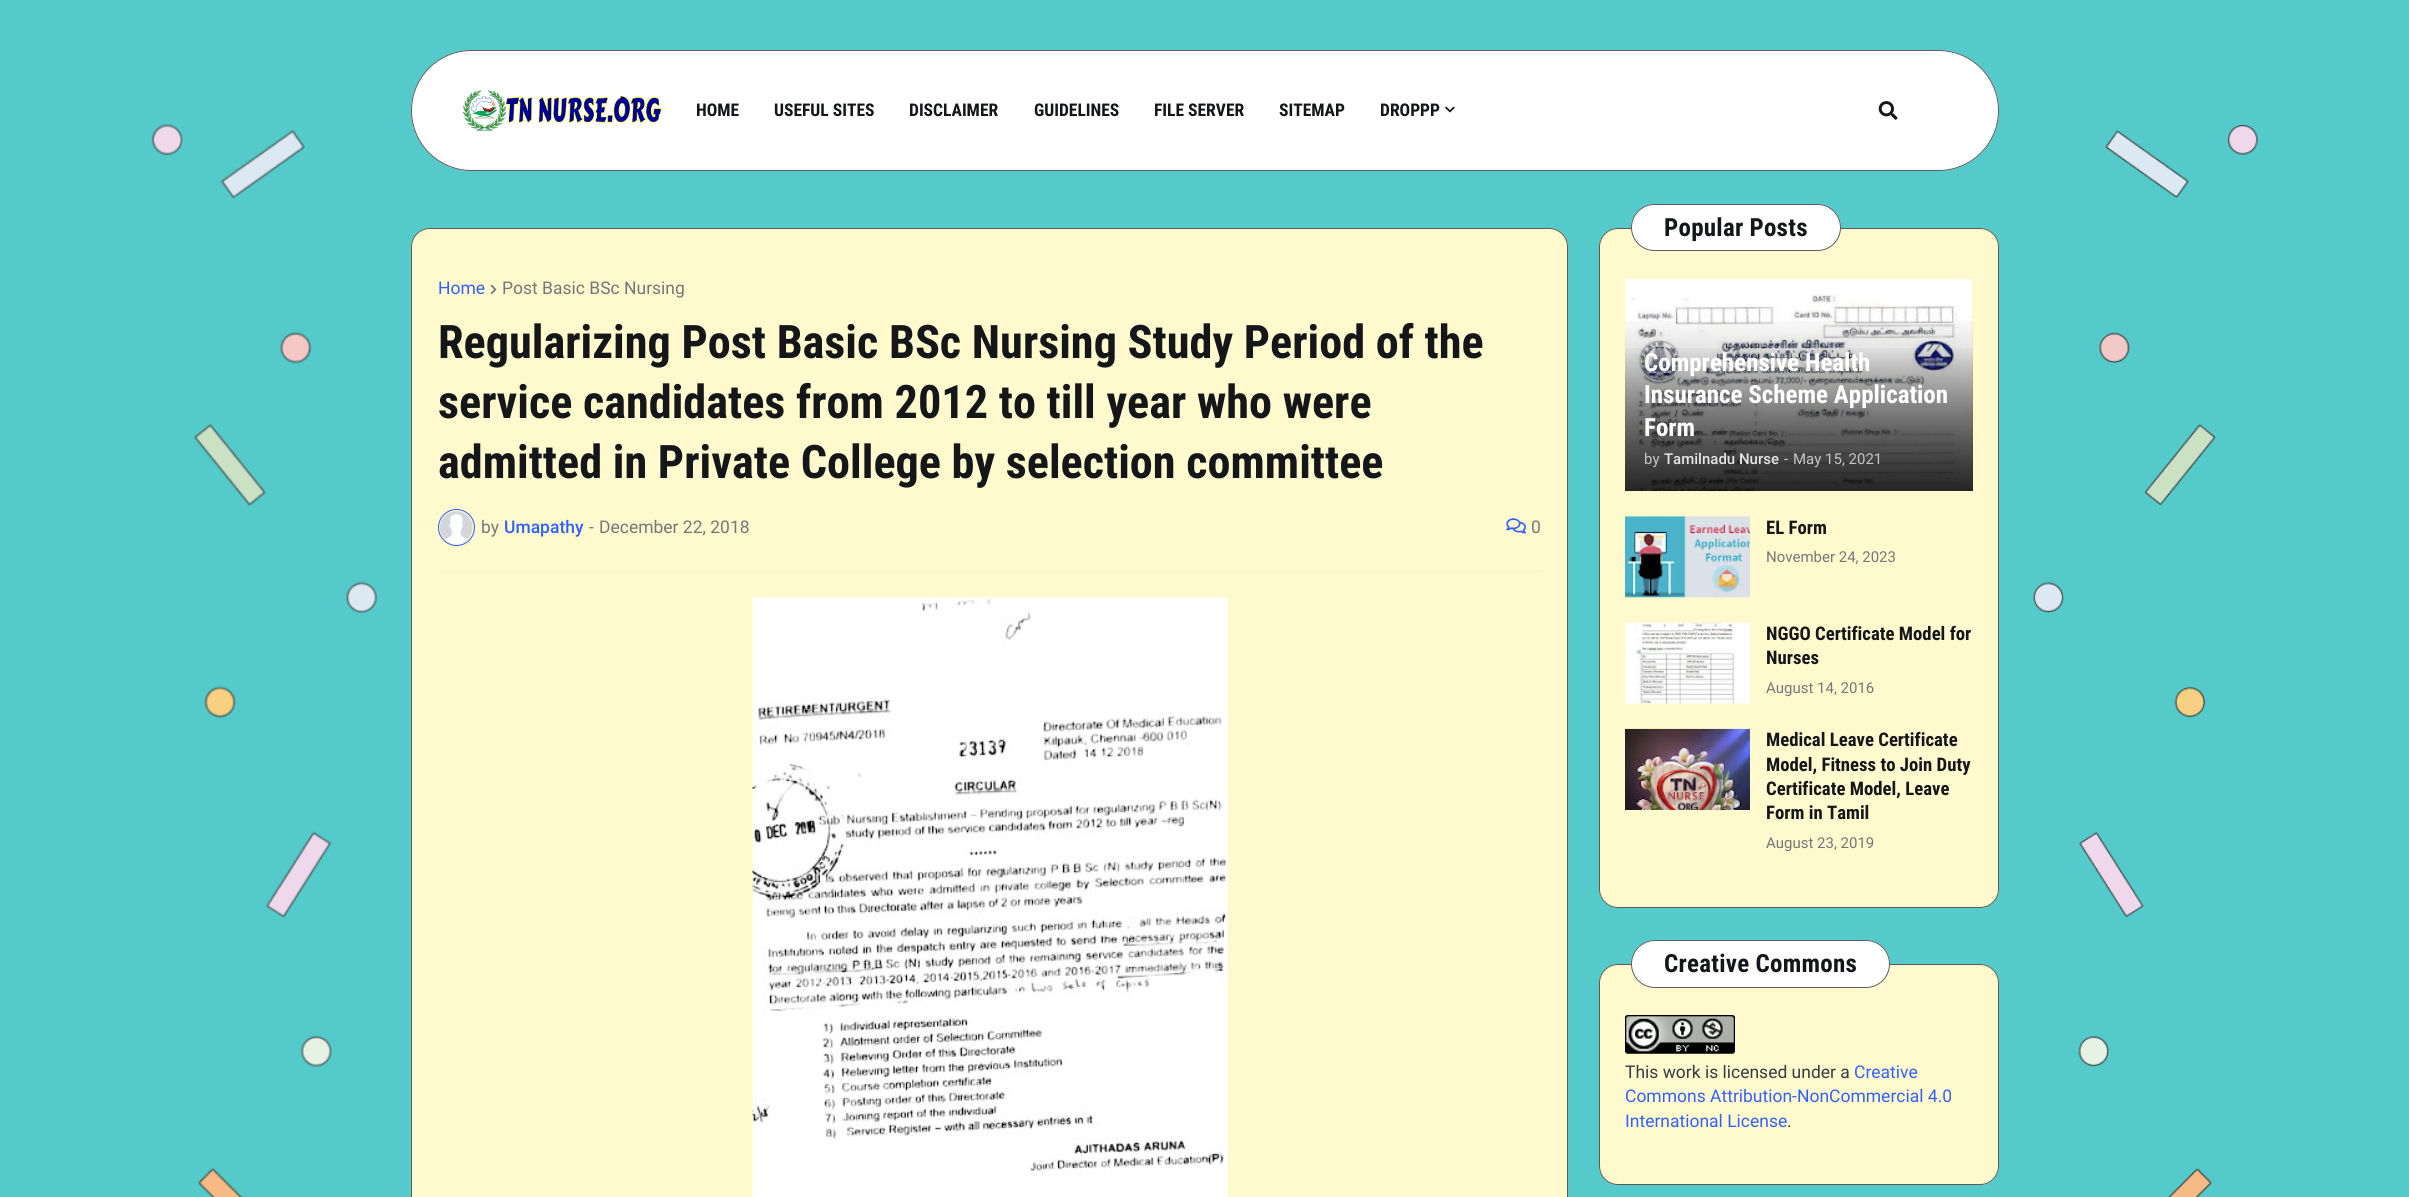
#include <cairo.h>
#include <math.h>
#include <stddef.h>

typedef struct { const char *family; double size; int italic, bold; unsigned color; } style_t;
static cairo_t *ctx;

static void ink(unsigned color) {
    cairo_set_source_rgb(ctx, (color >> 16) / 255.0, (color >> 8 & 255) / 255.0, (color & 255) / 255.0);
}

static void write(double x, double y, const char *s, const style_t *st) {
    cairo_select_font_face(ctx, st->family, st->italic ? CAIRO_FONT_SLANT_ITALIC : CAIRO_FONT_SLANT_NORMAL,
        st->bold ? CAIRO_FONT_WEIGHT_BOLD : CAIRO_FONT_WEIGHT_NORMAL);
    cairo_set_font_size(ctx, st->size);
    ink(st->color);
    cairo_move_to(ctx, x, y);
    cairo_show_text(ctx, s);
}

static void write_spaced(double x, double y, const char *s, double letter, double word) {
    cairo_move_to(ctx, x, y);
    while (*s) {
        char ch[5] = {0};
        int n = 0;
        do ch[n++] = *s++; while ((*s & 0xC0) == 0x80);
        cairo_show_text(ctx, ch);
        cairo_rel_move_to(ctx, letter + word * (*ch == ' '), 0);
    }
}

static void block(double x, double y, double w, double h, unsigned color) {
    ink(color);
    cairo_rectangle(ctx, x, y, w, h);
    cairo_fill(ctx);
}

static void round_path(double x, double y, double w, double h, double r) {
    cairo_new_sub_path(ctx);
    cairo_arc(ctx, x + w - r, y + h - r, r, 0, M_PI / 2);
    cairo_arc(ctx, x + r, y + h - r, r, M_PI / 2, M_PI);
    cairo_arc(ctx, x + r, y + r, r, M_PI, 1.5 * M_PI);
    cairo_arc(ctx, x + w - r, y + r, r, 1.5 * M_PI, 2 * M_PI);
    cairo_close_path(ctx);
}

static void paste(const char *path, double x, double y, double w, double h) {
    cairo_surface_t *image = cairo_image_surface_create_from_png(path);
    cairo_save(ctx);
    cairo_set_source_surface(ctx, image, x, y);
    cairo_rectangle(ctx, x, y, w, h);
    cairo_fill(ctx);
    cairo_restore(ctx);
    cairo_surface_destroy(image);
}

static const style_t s1 = {"Roboto Condensed", 17.5, 0, 1, 0x15161a};
static const style_t s2 = {"Roboto", 17.5, 0, 0, 0x3061ff};
static const style_t s3 = {"Roboto", 17.5, 0, 0, 0x76767a};
static const style_t s4 = {"Roboto Condensed", 46.25, 0, 1, 0x15161a};
static const style_t s5 = {"Roboto Medium", 17.5, 0, 0, 0x3061ff};
static const style_t s6 = {"Roboto Condensed", 25, 0, 1, 0xffffff};
static const style_t s7 = {"Roboto", 15, 0, 0, 0xc5c5c5};
static const style_t s8 = {"Roboto Medium", 15, 0, 0, 0xe5e5e5};
static const style_t s9 = {"Roboto Condensed", 18.75, 0, 1, 0x15161a};
static const style_t s10 = {"Roboto", 15, 0, 0, 0x76767a};
static const style_t s11 = {"Roboto", 17.5, 0, 0, 0x353a44};

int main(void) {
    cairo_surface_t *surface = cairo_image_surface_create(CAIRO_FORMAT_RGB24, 2409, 1197);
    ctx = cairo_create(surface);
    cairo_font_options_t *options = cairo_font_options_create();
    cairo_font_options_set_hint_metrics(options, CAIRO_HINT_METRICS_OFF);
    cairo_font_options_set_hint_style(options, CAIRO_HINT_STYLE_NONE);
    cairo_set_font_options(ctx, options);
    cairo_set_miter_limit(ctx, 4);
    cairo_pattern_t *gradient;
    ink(0x54cbca);
    cairo_paint(ctx);
    ink(0xffffff);
    round_path(411, 50, 1588, 121, 60.5);
    cairo_fill(ctx);
    round_path(411.5, 50.5, 1587, 120, 60);
    cairo_set_source_rgba(ctx, 0.153, 0.153, 0.153, 0.75);
    cairo_set_line_width(ctx, 1);
    cairo_stroke(ctx);
    paste("pic1.png", 463, 90, 199, 42);
    write(696, 116, "HOME", &s1);
    write(774, 116, "USEFUL SITES", &s1);
    write(909, 116, "DISCLAIMER", &s1);
    write(1034, 116, "GUIDELINES", &s1);
    write(1154, 116, "FILE SERVER", &s1);
    write(1279, 116, "SITEMAP", &s1);
    write(1380, 116, "DROPPP", &s1);
    paste("pic2.png", 1445, 106, 10, 7);
    paste("pic3.png", 1878, 101, 20, 19);
    paste("pic4.png", 151, 124, 226, 1073);
    paste("pic5.png", 2033, 125, 225, 1072);
    ink(0xfffacd);
    round_path(411, 228, 1157, 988, 19);
    cairo_fill(ctx);
    round_path(411.5, 228.5, 1156, 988, 18.5);
    cairo_set_source_rgba(ctx, 0.153, 0.153, 0.153, 0.75);
    cairo_stroke(ctx);
    block(438, 571, 1103, 1, 0xf5f1c8);
    write(438, 294, "Home", &s2);
    paste("pic6.png", 490, 284, 7, 11);
    write(502, 294, "Post Basic BSc Nursing", &s3);
    write(438, 358, "Regularizing Post Basic BSc Nursing Study Period of the", &s4);
    write(438, 418, "service candidates from 2012 to till year who were", &s4);
    write(438, 478, "admitted in Private College by selection committee", &s4);
    ink(0xfaf5cb);
    cairo_new_path(ctx);
    cairo_arc(ctx, 456.5, 527.5, 18, 0, 2 * M_PI);
    cairo_fill_preserve(ctx);
    ink(0x3061ff);
    cairo_stroke(ctx);
    paste("pic7.png", 440, 511, 33, 33);
    write(481, 533, "by", &s3);
    write(504, 533, "Umapathy", &s5);
    write(589, 533, "-", &s3);
    write(599, 533, "December 22, 2018", &s3);
    paste("pic8.png", 1506, 518, 20, 16);
    write(1531, 533, "0", &s3);
    paste("pic9.png", 752, 597, 476, 600);
    ink(0xfffacd);
    round_path(1599, 228, 400, 680, 19);
    cairo_fill(ctx);
    round_path(1599.5, 228.5, 399, 679, 18.5);
    cairo_set_source_rgba(ctx, 0.153, 0.153, 0.153, 0.75);
    cairo_stroke(ctx);
    ink(0xffffff);
    round_path(1631, 204, 210, 47, 23.5);
    cairo_fill(ctx);
    round_path(1631.5, 204.5, 209, 46, 23);
    cairo_set_source_rgba(ctx, 0.153, 0.153, 0.153, 0.75);
    cairo_stroke(ctx);
    cairo_select_font_face(ctx, "Roboto Condensed", CAIRO_FONT_SLANT_NORMAL, CAIRO_FONT_WEIGHT_BOLD);
    cairo_set_font_size(ctx, 25);
    ink(0x15161a);
    write_spaced(1664, 236, "Popular Posts", 0.25, 0);
    block(1972, 279, 1, 212, 0xfaf5cb);
    paste("pic10.png", 1625, 279, 348, 213);
    gradient = cairo_pattern_create_linear(1799, 343, 1799, 491);
    cairo_pattern_add_color_stop_rgba(gradient, 0, 0, 0, 0, 0);
    cairo_pattern_add_color_stop_rgba(gradient, 1, 0, 0, 0, 0.7);
    cairo_set_source(ctx, gradient);
    cairo_pattern_destroy(gradient);
    cairo_rectangle(ctx, 1625, 348, 348, 143);
    cairo_fill(ctx);
    gradient = cairo_pattern_create_linear(1799, 294, 1799, 491);
    cairo_pattern_add_color_stop_rgba(gradient, 0.1, 0, 0, 0, 0);
    cairo_pattern_add_color_stop_rgba(gradient, 1, 0, 0, 0, 0.5);
    cairo_set_source(ctx, gradient);
    cairo_pattern_destroy(gradient);
    cairo_rectangle(ctx, 1625, 321, 348, 170);
    cairo_fill(ctx);
    write(1644, 371, "Comprehensive Health", &s6);
    write(1644, 403, "Insurance Scheme Application", &s6);
    write(1644, 436, "Form", &s6);
    write(1644, 464, "by", &s7);
    write(1664, 464, "Tamilnadu Nurse", &s8);
    write(1784, 464, "-", &s7);
    write(1793, 464, "May 15, 2021", &s7);
    block(1625, 516, 125, 82, 0xfaf5cb);
    paste("pic11.png", 1625, 516, 125, 82);
    write(1766, 534, "EL Form", &s9);
    write(1766, 562, "November 24, 2023", &s10);
    block(1625, 703, 125, 1, 0xfaf5cb);
    paste("pic12.png", 1625, 622, 125, 82);
    write(1766, 640, "NGGO Certificate Model for", &s9);
    write(1766, 664, "Nurses", &s9);
    write(1766, 693, "August 14, 2016", &s10);
    paste("pic13.png", 1625, 728, 125, 82);
    write(1766, 746, "Medical Leave Certificate", &s9);
    write(1766, 771, "Model, Fitness to Join Duty", &s9);
    write(1766, 795, "Certificate Model, Leave", &s9);
    write(1766, 819, "Form in Tamil", &s9);
    write(1766, 848, "August 23, 2019", &s10);
    ink(0xfffacd);
    round_path(1599, 964, 400, 221, 19);
    cairo_fill(ctx);
    round_path(1599.5, 964.5, 399, 220, 18.5);
    cairo_set_source_rgba(ctx, 0.153, 0.153, 0.153, 0.75);
    cairo_stroke(ctx);
    ink(0xffffff);
    round_path(1631, 940, 259, 48, 24);
    cairo_fill(ctx);
    round_path(1631.5, 940.5, 258, 47, 23.5);
    cairo_set_source_rgba(ctx, 0.153, 0.153, 0.153, 0.75);
    cairo_stroke(ctx);
    cairo_select_font_face(ctx, "Roboto Condensed", CAIRO_FONT_SLANT_NORMAL, CAIRO_FONT_WEIGHT_BOLD);
    cairo_set_font_size(ctx, 25);
    ink(0x15161a);
    write_spaced(1664, 972, "Creative Commons", 0.25, 0);
    paste("pic14.png", 1625, 1015, 110, 39);
    write(1625, 1078, "This work is licensed under a", &s11);
    write(1854, 1078, "Creative", &s2);
    write(1625, 1102, "Commons Attribution-NonCommercial 4.0", &s2);
    write(1625, 1127, "International License", &s2);
    write(1787, 1127, ".", &s11);
    cairo_surface_write_to_png(surface, "screenshot.png");
    cairo_font_options_destroy(options);
    cairo_destroy(ctx);
    cairo_surface_destroy(surface);
    return 0;
}
